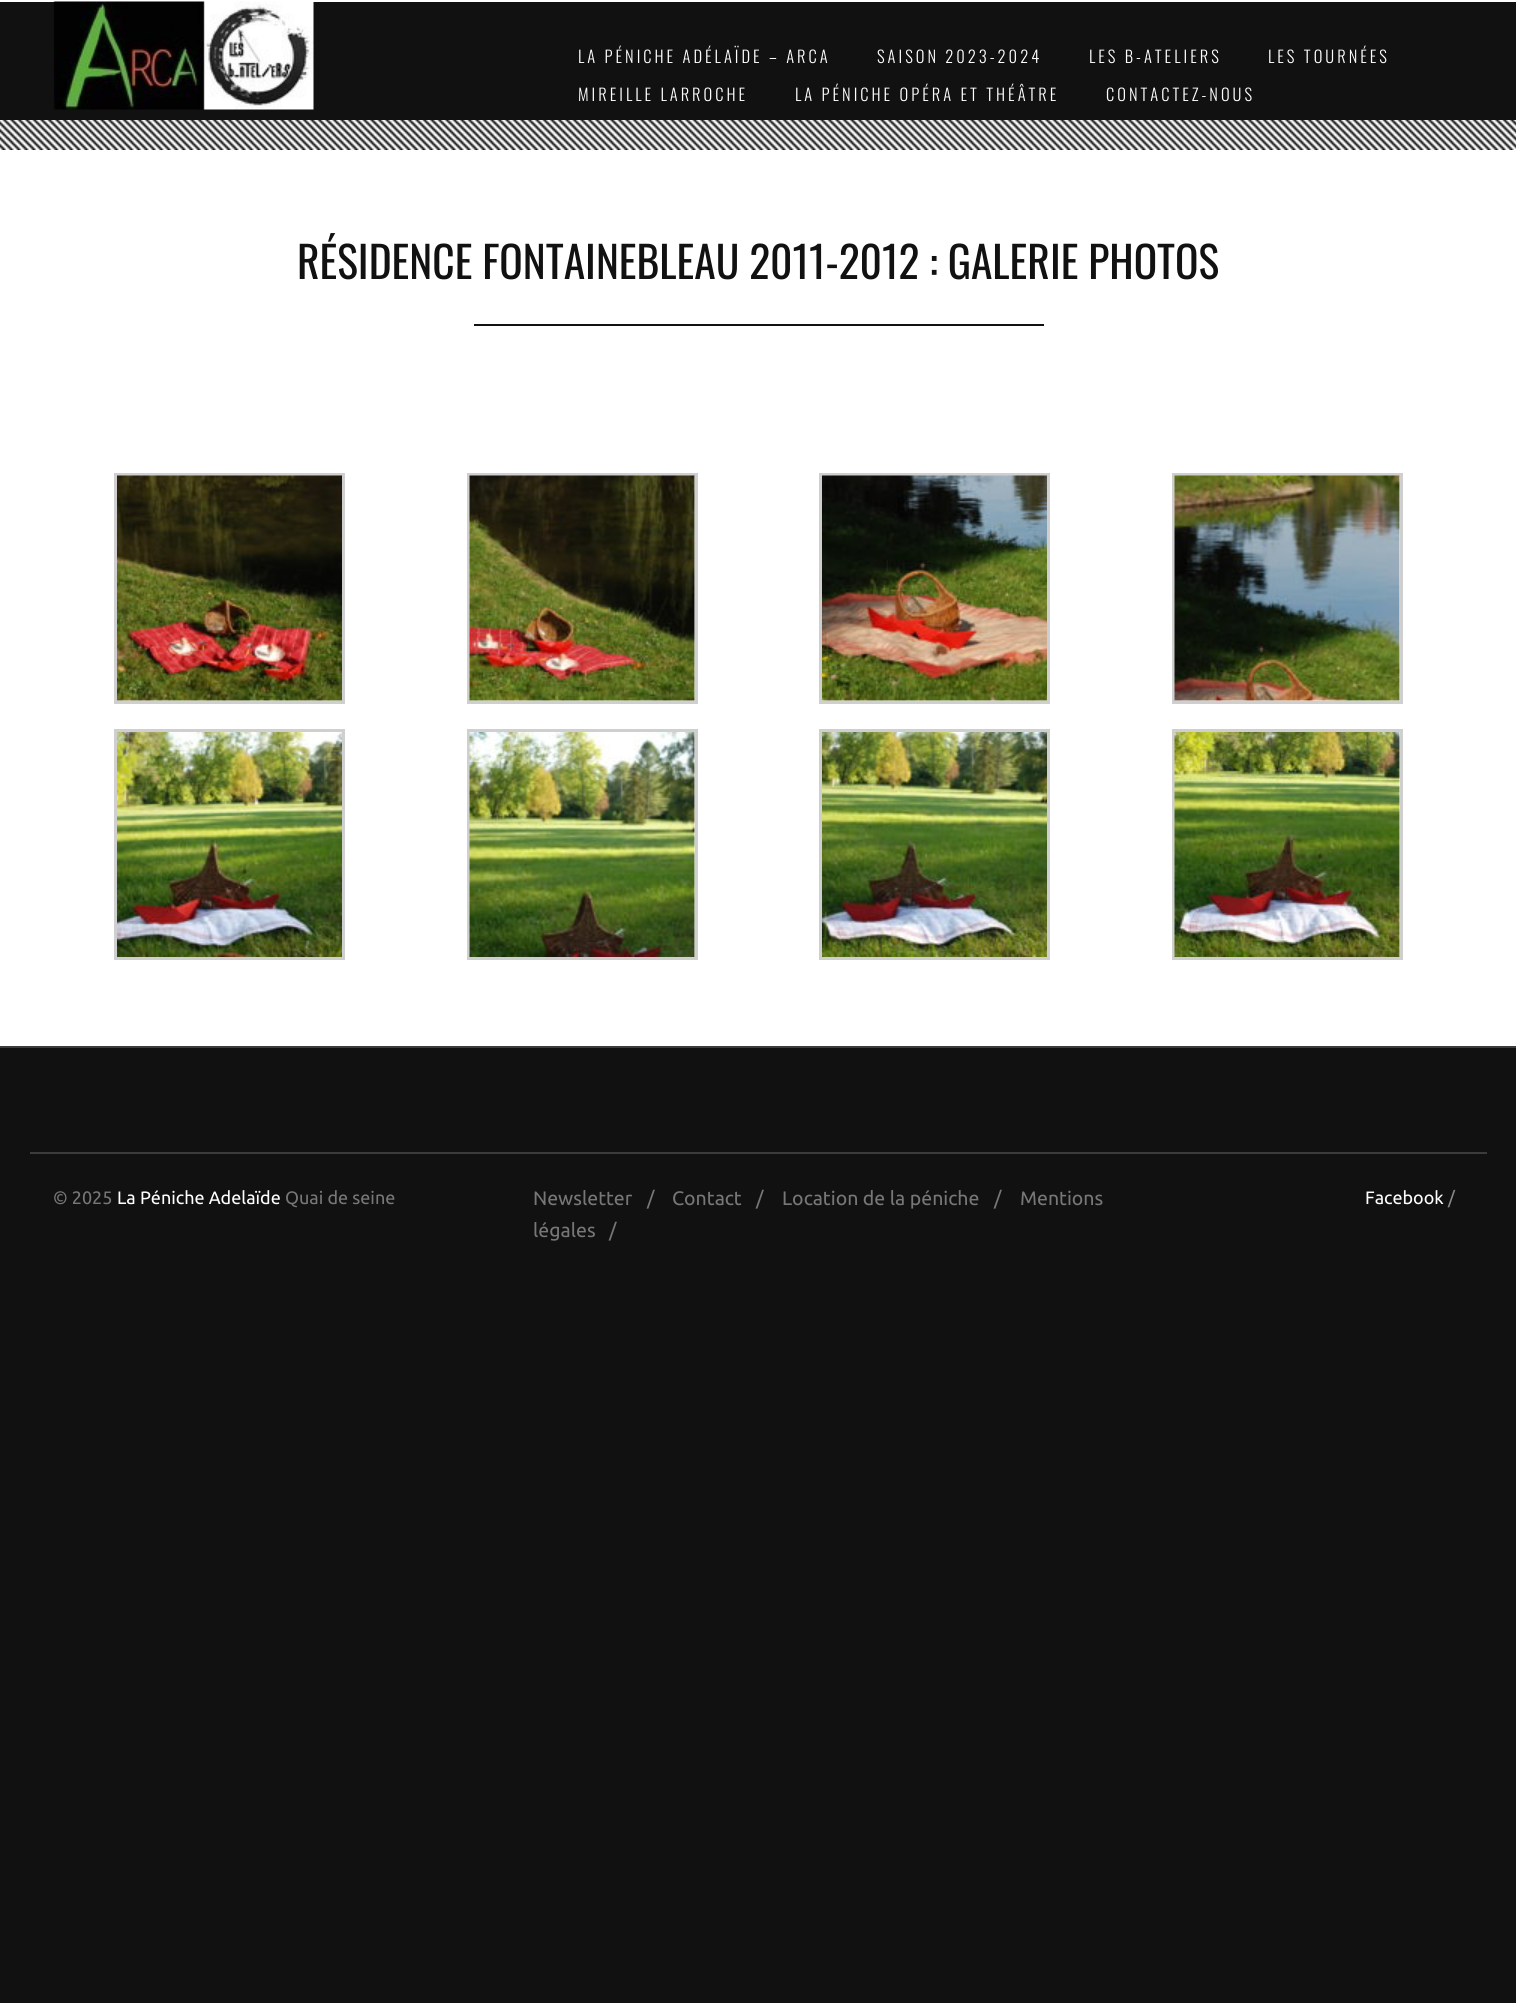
#include <cairo.h>
#include <math.h>
#include <stddef.h>

typedef struct { const char *family; double size; int italic, bold; unsigned color; } style_t;
static cairo_t *ctx;

static void ink(unsigned color) {
    cairo_set_source_rgb(ctx, (color >> 16) / 255.0, (color >> 8 & 255) / 255.0, (color & 255) / 255.0);
}

static void write(double x, double y, const char *s, const style_t *st) {
    cairo_select_font_face(ctx, st->family, st->italic ? CAIRO_FONT_SLANT_ITALIC : CAIRO_FONT_SLANT_NORMAL,
        st->bold ? CAIRO_FONT_WEIGHT_BOLD : CAIRO_FONT_WEIGHT_NORMAL);
    cairo_set_font_size(ctx, st->size);
    ink(st->color);
    cairo_move_to(ctx, x, y);
    cairo_show_text(ctx, s);
}

static void write_spaced(double x, double y, const char *s, double letter, double word) {
    cairo_move_to(ctx, x, y);
    while (*s) {
        char ch[5] = {0};
        int n = 0;
        do ch[n++] = *s++; while ((*s & 0xC0) == 0x80);
        cairo_show_text(ctx, ch);
        cairo_rel_move_to(ctx, letter + word * (*ch == ' '), 0);
    }
}

static void block(double x, double y, double w, double h, unsigned color) {
    ink(color);
    cairo_rectangle(ctx, x, y, w, h);
    cairo_fill(ctx);
}

static void paste(const char *path, double x, double y, double w, double h) {
    cairo_surface_t *image = cairo_image_surface_create_from_png(path);
    cairo_save(ctx);
    cairo_set_source_surface(ctx, image, x, y);
    cairo_rectangle(ctx, x, y, w, h);
    cairo_fill(ctx);
    cairo_restore(ctx);
    cairo_surface_destroy(image);
}

static const style_t s1 = {"Oswald", 43.5, 0, 0, 0x111111};
static const style_t s2 = {"Ubuntu", 18, 0, 0, 0x777777};
static const style_t s3 = {"Ubuntu", 18, 0, 0, 0xffffff};
static const style_t s4 = {"Ubuntu", 19.5, 0, 0, 0x777777};
static const style_t s5 = {"Ubuntu", 18, 0, 0, 0x888888};

int main(void) {
    cairo_surface_t *surface = cairo_image_surface_create(CAIRO_FORMAT_RGB24, 1516, 2003);
    ctx = cairo_create(surface);
    cairo_font_options_t *options = cairo_font_options_create();
    cairo_font_options_set_hint_metrics(options, CAIRO_HINT_METRICS_OFF);
    cairo_font_options_set_hint_style(options, CAIRO_HINT_STYLE_NONE);
    cairo_set_font_options(ctx, options);
    cairo_set_miter_limit(ctx, 4);
    ink(0x111111);
    cairo_paint(ctx);
    block(0, 0, 1516, 2, 0xffffff);
    paste("pic1.png", 53, 1, 261, 109);
    cairo_select_font_face(ctx, "Oswald Light", CAIRO_FONT_SLANT_NORMAL, CAIRO_FONT_WEIGHT_NORMAL);
    cairo_set_font_size(ctx, 16.5);
    write_spaced(578, 63, "LA PÉNICHE ADÉLAÏDE – ARCA", 3, 0);
    write_spaced(877, 63, "SAISON 2023-2024", 3, 0);
    write_spaced(1089, 63, "LES B-ATELIERS", 3, 0);
    write_spaced(1268, 63, "LES TOURNÉES", 3, 0);
    write_spaced(578, 101, "MIREILLE LARROCHE", 3, 0);
    write_spaced(795, 101, "LA PÉNICHE OPÉRA ET THÉÂTRE", 3, 0);
    write_spaced(1106, 101, "CONTACTEZ-NOUS", 3, 0);
    paste("pic2.png", 0, 120, 1516, 30);
    block(0, 150, 1516, 896, 0xffffff);
    write(297, 279, "RÉSIDENCE FONTAINEBLEAU 2011-2012 : GALERIE PHOTOS", &s1);
    block(474, 324, 570, 2, 0x111111);
    cairo_rectangle(ctx, 115.5, 474.5, 228, 228);
    ink(0xcfcfcf);
    cairo_set_line_width(ctx, 3);
    cairo_stroke(ctx);
    paste("pic3.png", 117, 475, 225, 226);
    cairo_rectangle(ctx, 468.5, 474.5, 228, 228);
    cairo_stroke(ctx);
    paste("pic4.png", 469, 475, 226, 226);
    cairo_rectangle(ctx, 820.5, 474.5, 228, 228);
    cairo_stroke(ctx);
    paste("pic5.png", 822, 475, 225, 226);
    cairo_rectangle(ctx, 1173.5, 474.5, 228, 228);
    cairo_stroke(ctx);
    paste("pic6.png", 1174, 475, 226, 226);
    cairo_rectangle(ctx, 115.5, 730.5, 228, 228);
    cairo_stroke(ctx);
    paste("pic7.png", 117, 732, 225, 225);
    cairo_rectangle(ctx, 468.5, 730.5, 228, 228);
    cairo_stroke(ctx);
    paste("pic8.png", 469, 732, 226, 225);
    cairo_rectangle(ctx, 820.5, 730.5, 228, 228);
    cairo_stroke(ctx);
    paste("pic9.png", 822, 732, 225, 225);
    cairo_rectangle(ctx, 1173.5, 730.5, 228, 228);
    cairo_stroke(ctx);
    paste("pic10.png", 1174, 732, 226, 225);
    block(0, 1046, 1516, 2, 0x3c3c3c);
    block(30, 1152, 1457, 2, 0x3c3c3c);
    write(53, 1204, "© 2025", &s2);
    write(117, 1204, "La Péniche Adelaïde", &s3);
    write(285, 1204, "Quai de seine", &s2);
    write(533, 1205, "Newsletter", &s4);
    write(647, 1205, "/", &s4);
    write(672, 1205, "Contact", &s4);
    write(756, 1205, "/", &s4);
    write(782, 1205, "Location de la péniche", &s4);
    write(994, 1205, "/", &s4);
    write(1020, 1205, "Mentions", &s4);
    write(533, 1237, "légales", &s4);
    write(609, 1237, "/", &s4);
    write(1365, 1204, "Facebook", &s3);
    write(1448, 1204, "/", &s5);
    cairo_surface_write_to_png(surface, "screenshot.png");
    cairo_font_options_destroy(options);
    cairo_destroy(ctx);
    cairo_surface_destroy(surface);
    return 0;
}
